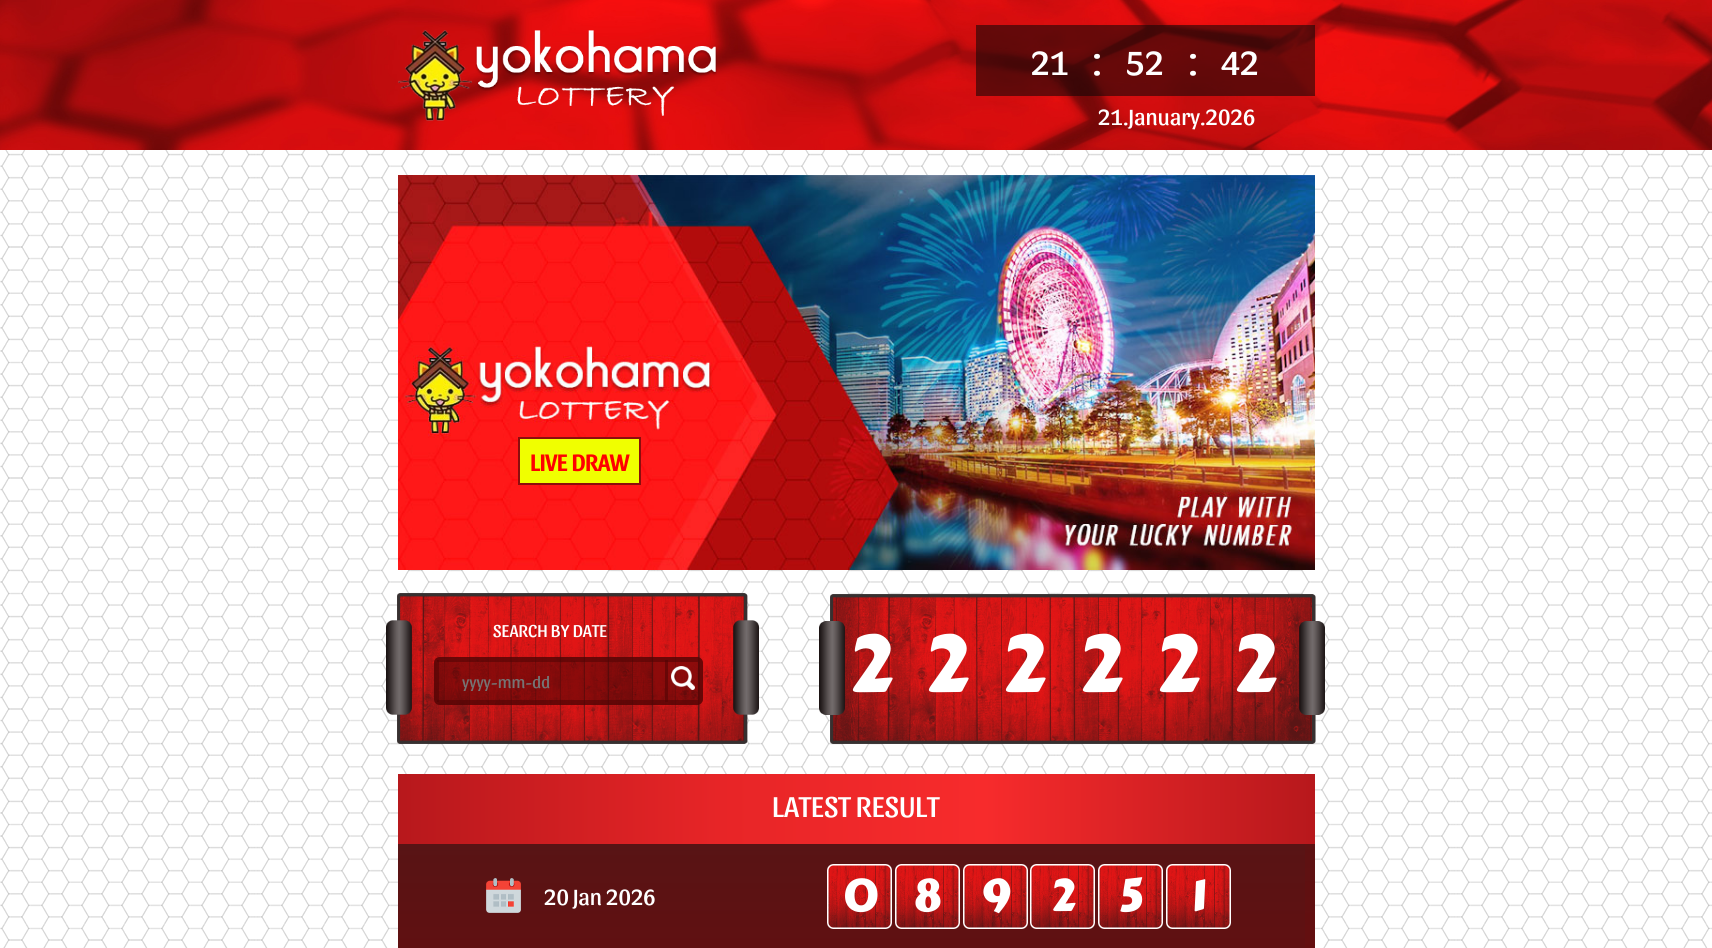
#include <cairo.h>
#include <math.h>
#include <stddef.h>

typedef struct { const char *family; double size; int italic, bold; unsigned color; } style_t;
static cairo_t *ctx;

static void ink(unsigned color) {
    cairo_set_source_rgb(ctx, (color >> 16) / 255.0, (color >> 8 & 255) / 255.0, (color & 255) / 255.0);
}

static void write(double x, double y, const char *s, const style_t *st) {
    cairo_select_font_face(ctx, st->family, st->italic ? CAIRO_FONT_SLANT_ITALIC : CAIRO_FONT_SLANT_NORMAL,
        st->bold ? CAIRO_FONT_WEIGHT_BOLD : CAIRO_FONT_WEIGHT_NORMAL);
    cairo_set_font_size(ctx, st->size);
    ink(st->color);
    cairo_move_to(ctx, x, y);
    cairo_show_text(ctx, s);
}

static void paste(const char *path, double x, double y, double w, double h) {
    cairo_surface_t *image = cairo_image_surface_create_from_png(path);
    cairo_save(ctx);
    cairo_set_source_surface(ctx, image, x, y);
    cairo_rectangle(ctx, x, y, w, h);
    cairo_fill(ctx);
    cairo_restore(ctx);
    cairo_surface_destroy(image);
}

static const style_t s1 = {"Sansita", 35, 0, 0, 0xffffff};
static const style_t s2 = {"Sansita", 40, 0, 0, 0xffffff};
static const style_t s3 = {"Sansita", 23, 0, 0, 0xffffff};
static const style_t s4 = {"Sansita", 24, 0, 1, 0xff0000};
static const style_t s5 = {"Carter One", 80, 0, 0, 0xffffff};
static const style_t s6 = {"Sansita", 18, 0, 0, 0xffffff};
static const style_t s7 = {"Sansita", 17, 0, 0, 0x757575};
static const style_t s8 = {"Sansita", 30, 0, 0, 0xffffff};
static const style_t s9 = {"Carter One", 45, 0, 0, 0xffffff};

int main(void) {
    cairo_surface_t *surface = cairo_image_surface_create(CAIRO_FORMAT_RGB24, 1712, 948);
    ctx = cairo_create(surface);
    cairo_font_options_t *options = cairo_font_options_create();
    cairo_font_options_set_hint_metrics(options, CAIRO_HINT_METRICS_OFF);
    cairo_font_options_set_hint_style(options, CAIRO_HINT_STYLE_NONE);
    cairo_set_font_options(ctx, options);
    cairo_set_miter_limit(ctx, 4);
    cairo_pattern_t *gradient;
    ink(0xffffff);
    cairo_paint(ctx);
    paste("pic1.png", 0, 150, 1712, 798);
    paste("pic2.png", 0, 0, 1712, 150);
    paste("pic3.png", 398, 30, 319, 91);
    cairo_set_source_rgba(ctx, 0.024, 0.024, 0.024, 0.54);
    cairo_rectangle(ctx, 976, 25, 339, 71);
    cairo_fill(ctx);
    write(1031, 75, "21", &s1);
    write(1092, 75, ":", &s2);
    write(1126, 75, "52", &s1);
    write(1188, 75, ":", &s2);
    write(1221, 75, "42", &s1);
    write(1098, 125, "21.January.2026", &s3);
    paste("pic5.png", 398, 175, 917, 395);
    ink(0xf0ff00);
    cairo_rectangle(ctx, 519, 438, 121, 46);
    cairo_fill_preserve(ctx);
    ink(0x8c0d0d);
    cairo_stroke(ctx);
    write(530, 471, "LIVE DRAW", &s4);
    paste("pic4.png", 819, 594, 506, 150);
    write(849, 692, "2", &s5);
    write(925, 692, "2", &s5);
    write(1002, 692, "2", &s5);
    write(1079, 692, "2", &s5);
    write(1156, 692, "2", &s5);
    write(1233, 692, "2", &s5);
    paste("pic6.png", 386, 593, 373, 151);
    write(493, 637, "SEARCH BY DATE", &s6);
    cairo_set_source_rgba(ctx, 0.322, 0.016, 0.016, 0.58);
    cairo_new_path(ctx);
    cairo_move_to(ctx, 440, 657);
    cairo_line_to(ctx, 668, 657);
    cairo_line_to(ctx, 668, 705);
    cairo_line_to(ctx, 440, 705);
    cairo_curve_to(ctx, 436.5, 705, 434, 702.5, 434, 699);
    cairo_line_to(ctx, 434, 663);
    cairo_curve_to(ctx, 434, 659.5, 436.5, 657, 440, 657);
    cairo_close_path(ctx);
    cairo_fill(ctx);
    cairo_new_path(ctx);
    cairo_move_to(ctx, 440, 658.5);
    cairo_line_to(ctx, 666.5, 658.5);
    cairo_line_to(ctx, 666.5, 703.5);
    cairo_line_to(ctx, 440, 703.5);
    cairo_curve_to(ctx, 437.5, 703.5, 435.5, 701.5, 435.5, 699);
    cairo_line_to(ctx, 435.5, 663);
    cairo_curve_to(ctx, 435.5, 660.5, 437.5, 658.5, 440, 658.5);
    cairo_close_path(ctx);
    cairo_set_line_width(ctx, 3);
    cairo_stroke(ctx);
    cairo_rectangle(ctx, 437, 660, 231, 2);
    cairo_fill(ctx);
    cairo_rectangle(ctx, 437, 700, 231, 2);
    cairo_fill(ctx);
    cairo_rectangle(ctx, 437, 660, 2, 42);
    cairo_fill(ctx);
    cairo_save(ctx);
    cairo_rectangle(ctx, 462, 671, 180, 20);
    cairo_clip(ctx);
    write(462, 688, "yyyy-mm-dd", &s7);
    cairo_restore(ctx);
    cairo_new_path(ctx);
    cairo_move_to(ctx, 668, 657);
    cairo_line_to(ctx, 697, 657);
    cairo_curve_to(ctx, 700.5, 657, 703, 659.5, 703, 663);
    cairo_line_to(ctx, 703, 699);
    cairo_curve_to(ctx, 703, 702.5, 700.5, 705, 697, 705);
    cairo_line_to(ctx, 668, 705);
    cairo_close_path(ctx);
    cairo_fill(ctx);
    cairo_set_fill_rule(ctx, CAIRO_FILL_RULE_EVEN_ODD);
    cairo_new_path(ctx);
    cairo_move_to(ctx, 668, 657);
    cairo_line_to(ctx, 697, 657);
    cairo_curve_to(ctx, 700, 657, 703, 660, 703, 663);
    cairo_line_to(ctx, 703, 699);
    cairo_curve_to(ctx, 703, 702, 700, 705, 697, 705);
    cairo_line_to(ctx, 668, 705);
    cairo_close_path(ctx);
    cairo_move_to(ctx, 668, 662);
    cairo_line_to(ctx, 697, 662);
    cairo_curve_to(ctx, 698, 662, 698, 662, 698, 663);
    cairo_line_to(ctx, 698, 699);
    cairo_curve_to(ctx, 698, 700, 698, 700, 697, 700);
    cairo_line_to(ctx, 668, 700);
    cairo_close_path(ctx);
    cairo_fill(ctx);
    paste("pic7.png", 671, 666, 24, 24);
    gradient = cairo_pattern_create_linear(857, 774, 857, 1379);
    cairo_pattern_add_color_stop_rgba(gradient, 0, 0.345, 0.078, 0.082, 1);
    cairo_pattern_add_color_stop_rgba(gradient, 0.57, 0.439, 0.035, 0.039, 1);
    cairo_pattern_add_color_stop_rgba(gradient, 1, 0.451, 0.039, 0.047, 1);
    cairo_set_source(ctx, gradient);
    cairo_pattern_destroy(gradient);
    cairo_rectangle(ctx, 1305, 844, 10, 104);
    cairo_fill(ctx);
    gradient = cairo_pattern_create_linear(398, 809, 1315, 809);
    cairo_pattern_add_color_stop_rgba(gradient, 0, 0.718, 0.094, 0.11, 1);
    cairo_pattern_add_color_stop_rgba(gradient, 0.35, 0.906, 0.145, 0.153, 1);
    cairo_pattern_add_color_stop_rgba(gradient, 0.64, 0.969, 0.169, 0.173, 1);
    cairo_pattern_add_color_stop_rgba(gradient, 1, 0.718, 0.094, 0.11, 1);
    cairo_set_source(ctx, gradient);
    cairo_pattern_destroy(gradient);
    cairo_rectangle(ctx, 398, 774, 917, 70);
    cairo_fill(ctx);
    write(772, 817, "LATEST RESULT", &s8);
    gradient = cairo_pattern_create_linear(852, 844, 852, 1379);
    cairo_pattern_add_color_stop_rgba(gradient, 0, 0.345, 0.078, 0.082, 1);
    cairo_pattern_add_color_stop_rgba(gradient, 0.57, 0.439, 0.035, 0.039, 1);
    cairo_pattern_add_color_stop_rgba(gradient, 1, 0.451, 0.039, 0.047, 1);
    cairo_set_source(ctx, gradient);
    cairo_pattern_destroy(gradient);
    cairo_rectangle(ctx, 398, 844, 907, 104);
    cairo_fill(ctx);
    paste("pic8.png", 486, 878, 35, 35);
    write(544, 905, "20 Jan 2026", &s3);
    paste("pic9.png", 827, 864, 65, 65);
    write(842, 911, "0", &s9);
    paste("pic9.png", 895, 864, 65, 65);
    write(913, 911, "8", &s9);
    paste("pic9.png", 963, 864, 65, 65);
    write(981, 911, "9", &s9);
    paste("pic9.png", 1030, 864, 65, 65);
    write(1051, 911, "2", &s9);
    paste("pic9.png", 1098, 864, 65, 65);
    write(1119, 911, "5", &s9);
    paste("pic9.png", 1166, 864, 65, 65);
    write(1191, 911, "1", &s9);
    cairo_surface_write_to_png(surface, "screenshot.png");
    cairo_font_options_destroy(options);
    cairo_destroy(ctx);
    cairo_surface_destroy(surface);
    return 0;
}
